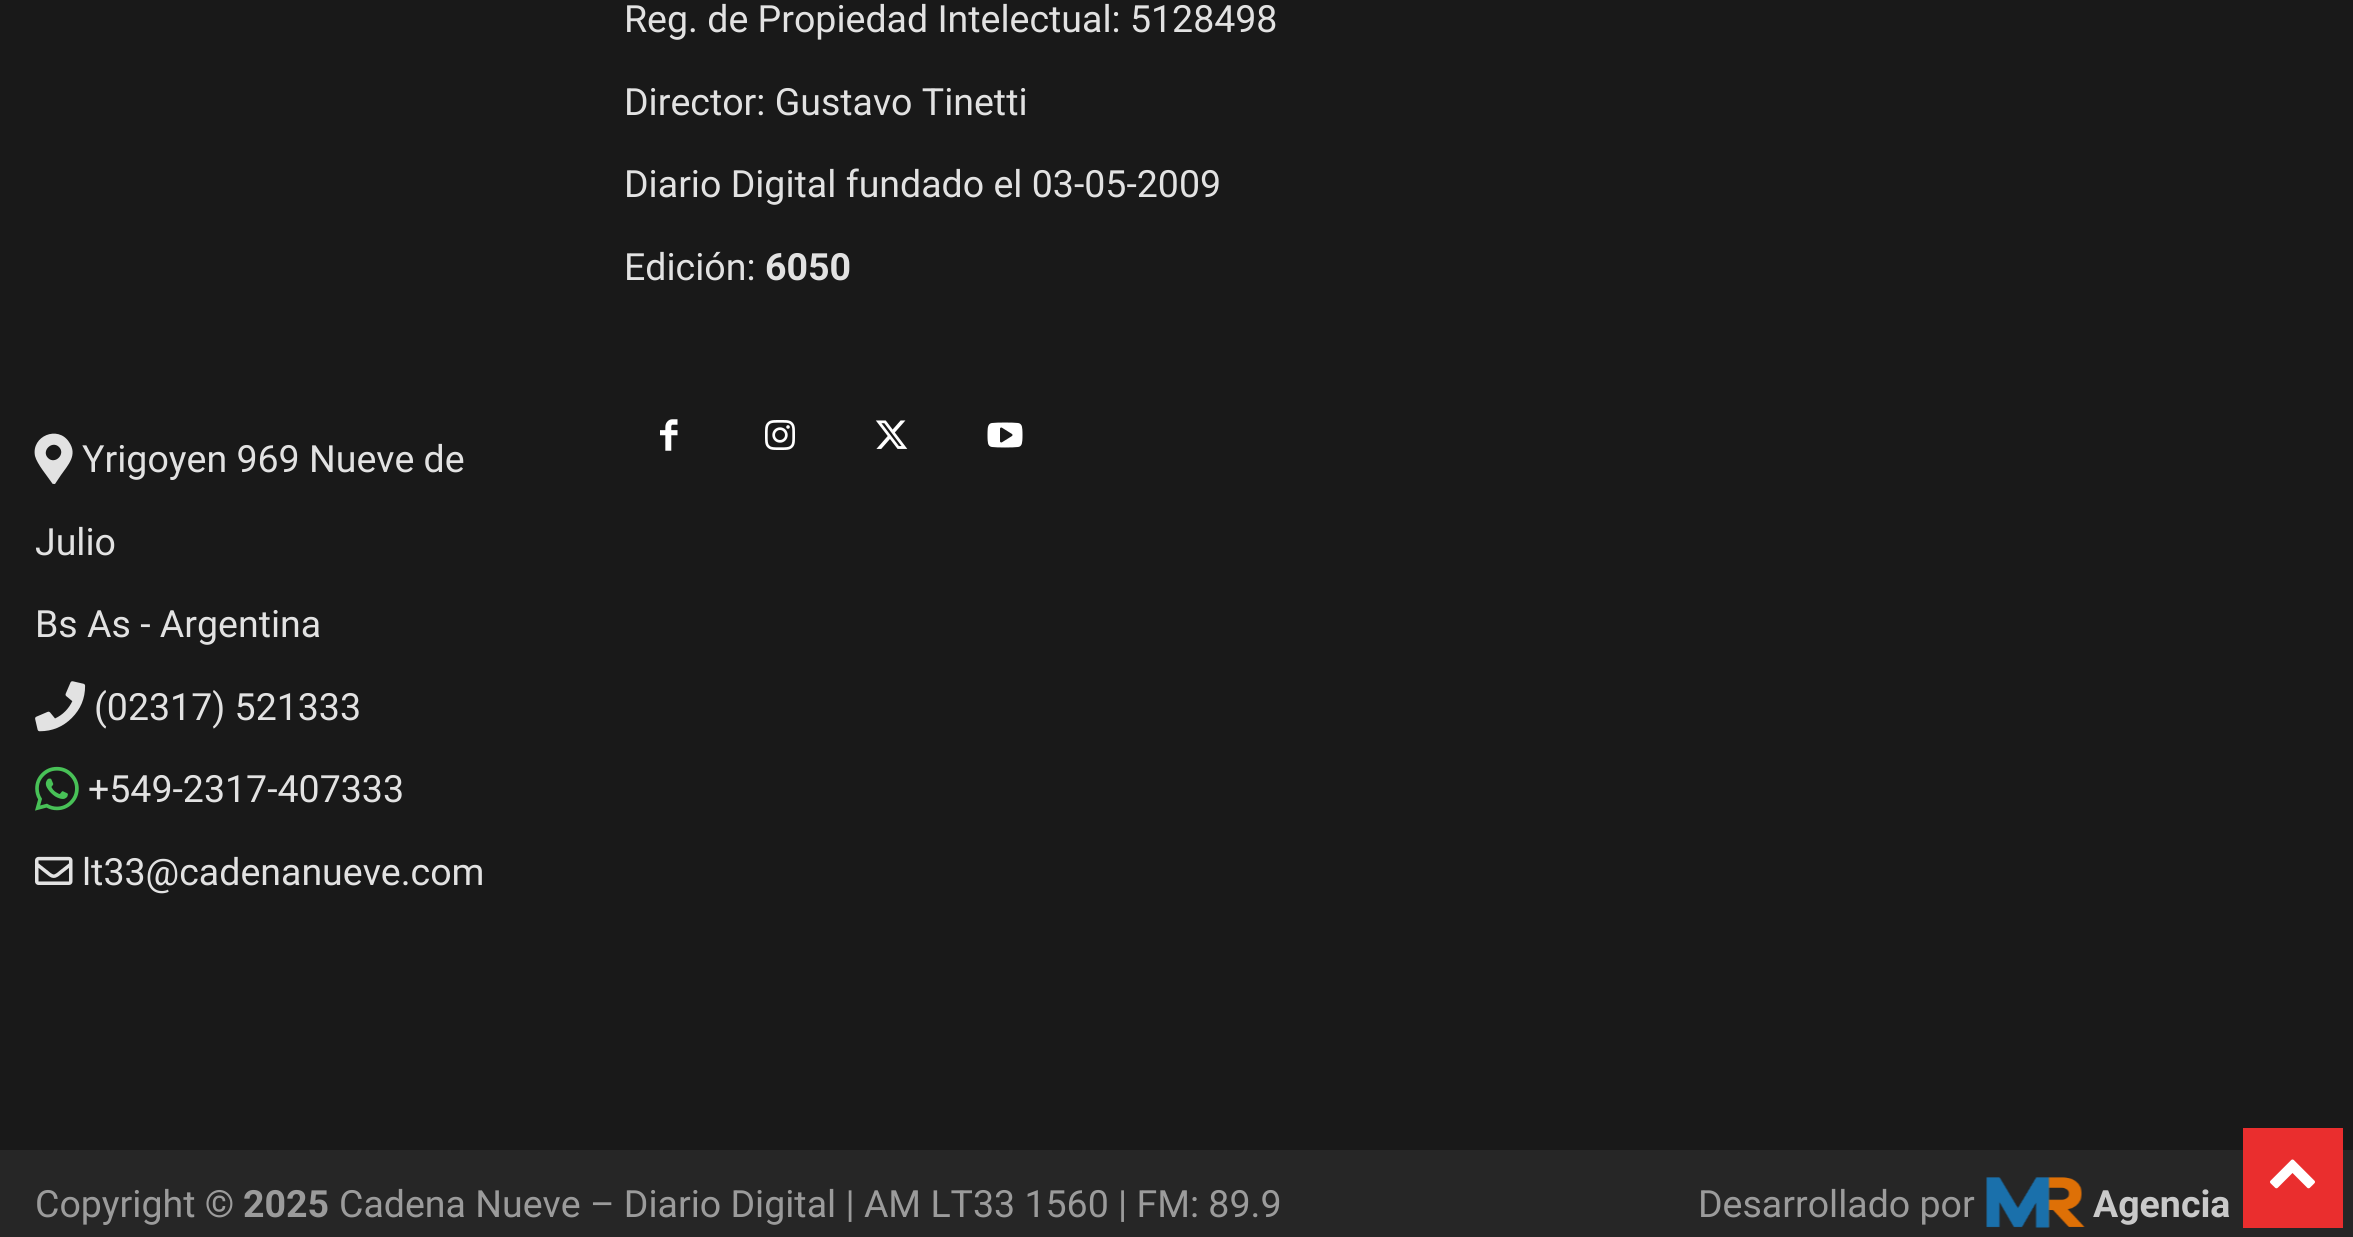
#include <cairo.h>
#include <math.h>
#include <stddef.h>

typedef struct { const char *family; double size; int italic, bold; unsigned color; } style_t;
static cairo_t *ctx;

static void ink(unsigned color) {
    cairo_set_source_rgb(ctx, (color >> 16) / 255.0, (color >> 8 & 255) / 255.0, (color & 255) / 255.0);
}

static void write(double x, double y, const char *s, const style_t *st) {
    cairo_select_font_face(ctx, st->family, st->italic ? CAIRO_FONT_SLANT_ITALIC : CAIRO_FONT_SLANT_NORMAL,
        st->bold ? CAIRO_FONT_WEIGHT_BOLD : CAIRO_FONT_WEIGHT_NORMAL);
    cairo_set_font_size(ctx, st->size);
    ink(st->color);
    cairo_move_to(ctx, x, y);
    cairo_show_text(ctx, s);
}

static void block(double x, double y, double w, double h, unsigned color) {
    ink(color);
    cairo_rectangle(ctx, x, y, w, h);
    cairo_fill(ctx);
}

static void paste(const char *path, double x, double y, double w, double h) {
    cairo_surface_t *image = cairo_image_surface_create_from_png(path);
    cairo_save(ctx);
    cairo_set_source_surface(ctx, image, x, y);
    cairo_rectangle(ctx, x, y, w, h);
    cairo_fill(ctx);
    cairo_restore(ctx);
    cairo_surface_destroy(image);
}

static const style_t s1 = {"Roboto", 37.5, 0, 0, 0xe2e2e2};
static const style_t s2 = {"Roboto", 37.5, 0, 1, 0xe2e2e2};
static const style_t s3 = {"Roboto", 37.5, 0, 0, 0x9b9b9b};
static const style_t s4 = {"Roboto", 37.5, 0, 1, 0x9b9b9b};
static const style_t s5 = {"Roboto", 37.5, 0, 1, 0xc9c9c9};

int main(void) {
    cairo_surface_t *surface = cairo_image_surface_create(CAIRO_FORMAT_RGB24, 2353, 1237);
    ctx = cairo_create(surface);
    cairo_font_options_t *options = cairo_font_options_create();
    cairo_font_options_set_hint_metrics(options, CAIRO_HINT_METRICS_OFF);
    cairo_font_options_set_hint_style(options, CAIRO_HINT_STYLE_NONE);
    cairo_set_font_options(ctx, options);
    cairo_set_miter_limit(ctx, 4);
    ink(0x191919);
    cairo_paint(ctx);
    write(624, 32, "Reg. de Propiedad Intelectual: 5128498", &s1);
    write(624, 115, "Director: Gustavo Tinetti", &s1);
    write(624, 197, "Diario Digital fundado el 03-05-2009", &s1);
    write(624, 280, "Edición:", &s1);
    write(765, 280, "6050", &s2);
    paste("pic1.png", 660, 419, 18, 32);
    paste("pic2.png", 765, 420, 30, 30);
    paste("pic3.png", 875, 420, 33, 29);
    paste("pic4.png", 987, 422, 36, 26);
    cairo_new_path(ctx);
    cairo_move_to(ctx, 52, 483);
    cairo_curve_to(ctx, 48, 477, 37, 464, 35, 456);
    cairo_curve_to(ctx, 31, 436, 58, 425, 69, 442);
    cairo_curve_to(ctx, 78, 455, 68, 465, 61, 475);
    cairo_line_to(ctx, 55, 484);
    cairo_curve_to(ctx, 54, 484, 52, 484, 52, 483);
    cairo_close_path(ctx);
    cairo_move_to(ctx, 48, 458);
    cairo_curve_to(ctx, 55, 465, 66, 454, 59, 447);
    cairo_curve_to(ctx, 52, 440, 41, 451, 48, 458);
    cairo_close_path(ctx);
    cairo_fill(ctx);
    write(82, 472, "Yrigoyen 969 Nueve de", &s1);
    write(35, 555, "Julio", &s1);
    write(35, 637, "Bs As - Argentina", &s1);
    paste("pic5.png", 35, 681, 51, 51);
    write(94, 720, "(02317) 521333", &s1);
    paste("pic6.png", 35, 766, 44, 45);
    write(88, 802, "+549-2317-407333", &s1);
    paste("pic7.png", 35, 856, 38, 29);
    write(82, 885, "lt33@cadenanueve.com", &s1);
    block(0, 1150, 2353, 87, 0x262626);
    write(35, 1217, "Copyright ©", &s3);
    write(243, 1217, "2025", &s4);
    write(339, 1217, "Cadena Nueve – Diario Digital | AM LT33 1560 | FM: 89.9", &s3);
    write(1698, 1217, "Desarrollado por", &s3);
    paste("pic8.png", 1986, 1177, 99, 51);
    write(2093, 1217, "Agencia", &s5);
    block(2243, 1128, 100, 100, 0xea2e2e);
    paste("pic9.png", 2270, 1159, 45, 30);
    cairo_surface_write_to_png(surface, "screenshot.png");
    cairo_font_options_destroy(options);
    cairo_destroy(ctx);
    cairo_surface_destroy(surface);
    return 0;
}
